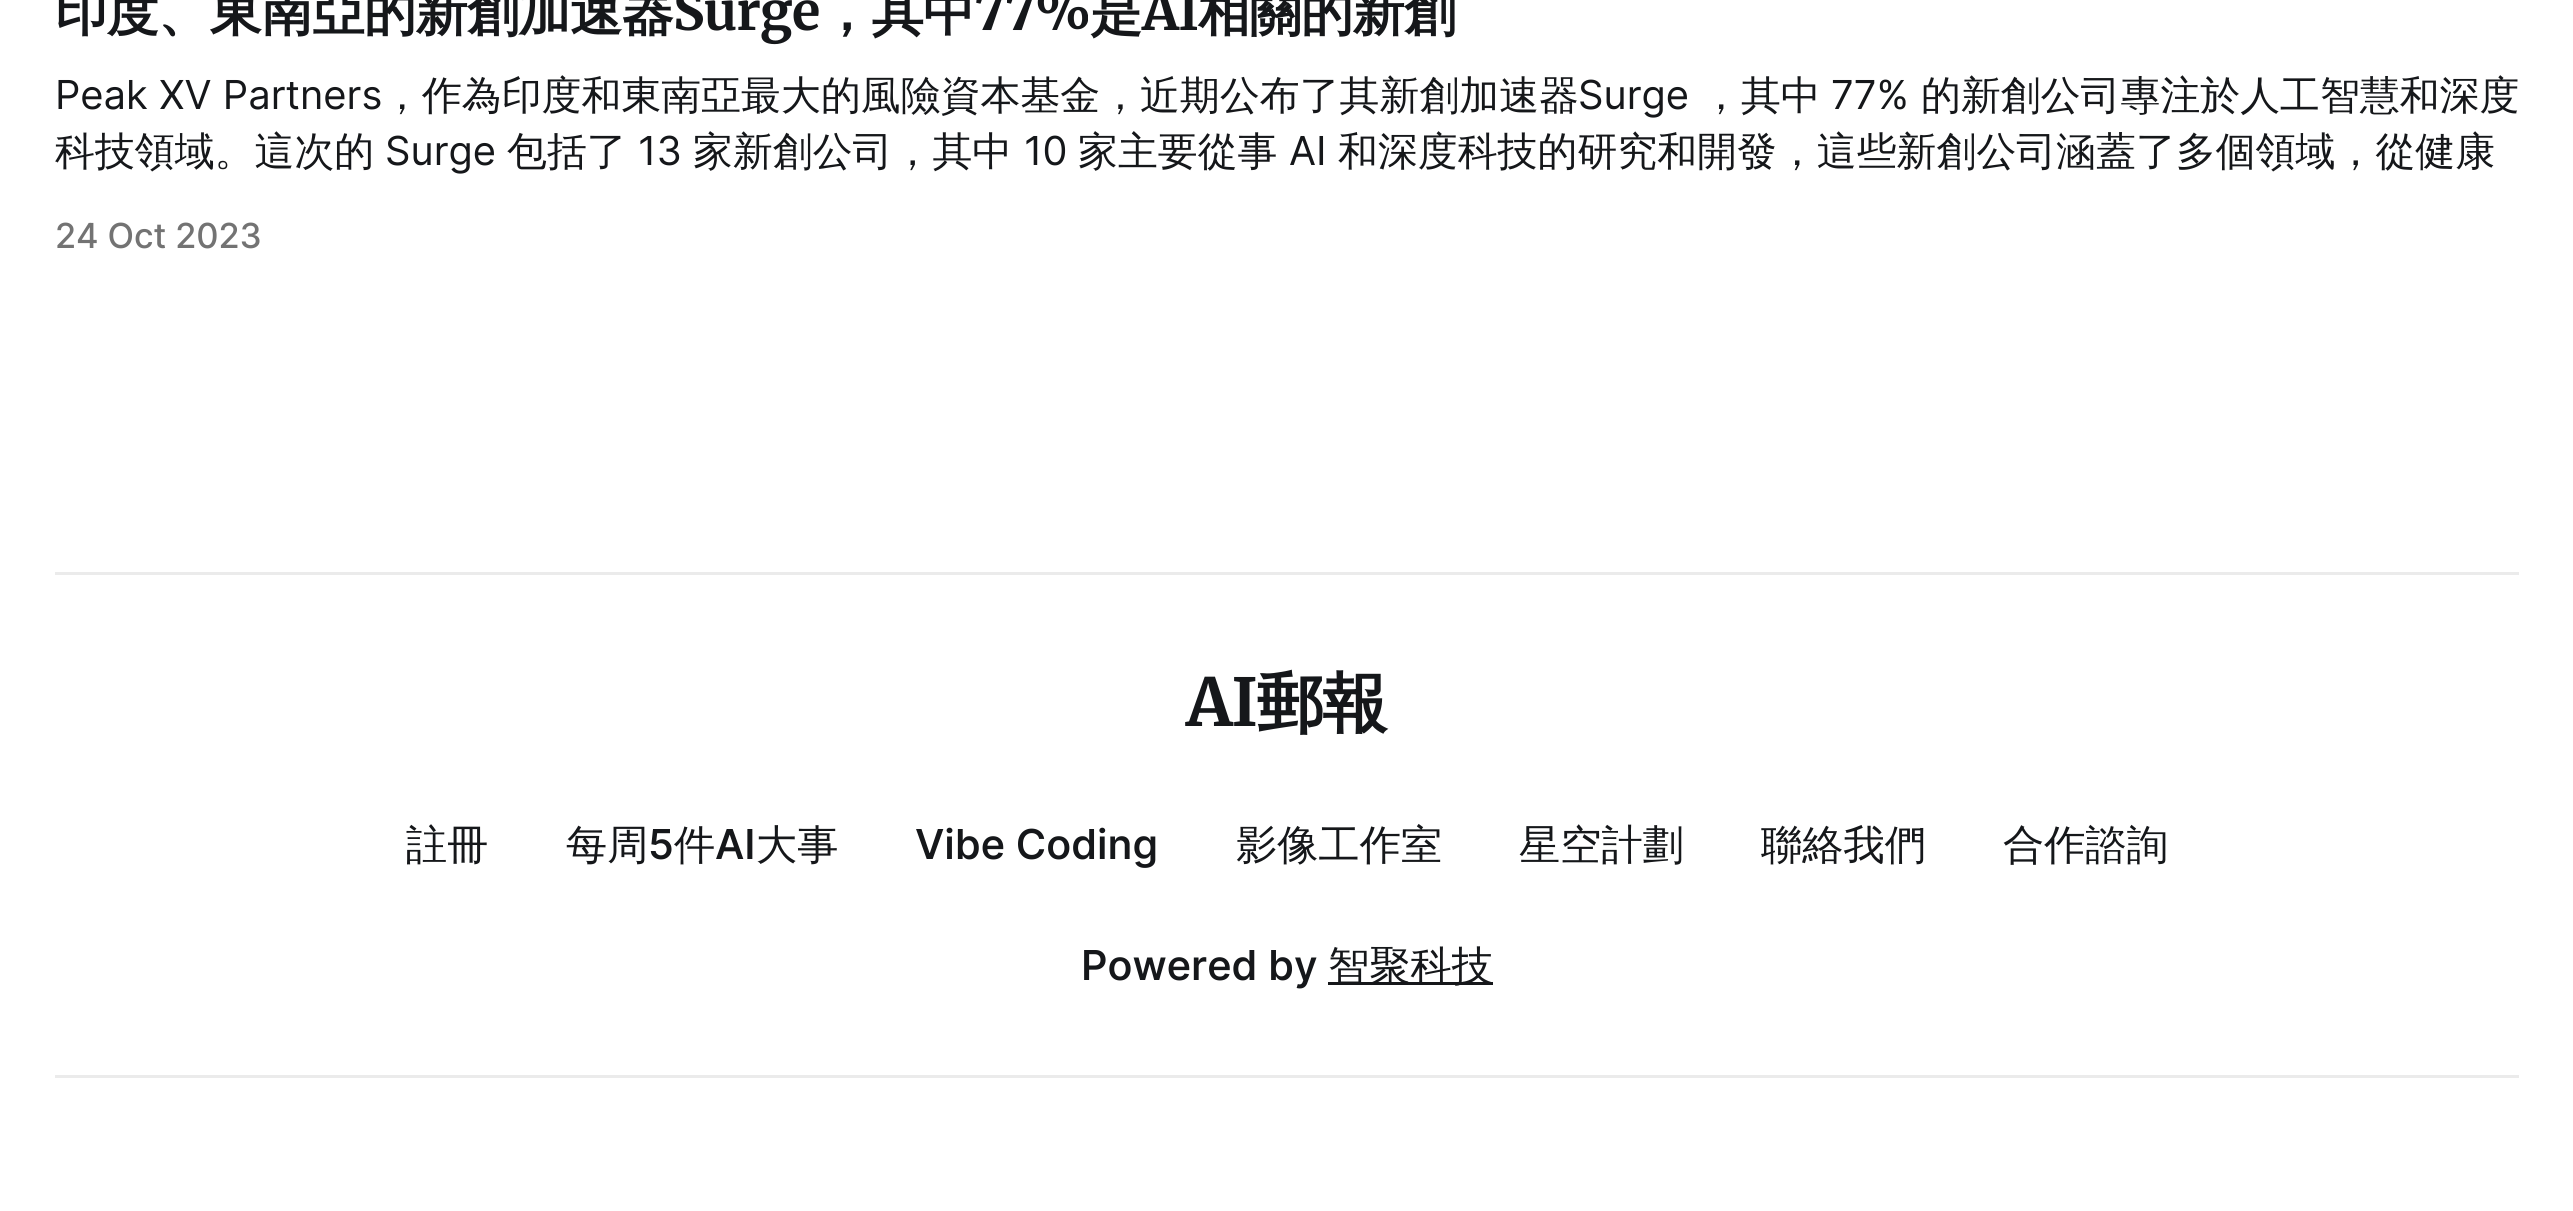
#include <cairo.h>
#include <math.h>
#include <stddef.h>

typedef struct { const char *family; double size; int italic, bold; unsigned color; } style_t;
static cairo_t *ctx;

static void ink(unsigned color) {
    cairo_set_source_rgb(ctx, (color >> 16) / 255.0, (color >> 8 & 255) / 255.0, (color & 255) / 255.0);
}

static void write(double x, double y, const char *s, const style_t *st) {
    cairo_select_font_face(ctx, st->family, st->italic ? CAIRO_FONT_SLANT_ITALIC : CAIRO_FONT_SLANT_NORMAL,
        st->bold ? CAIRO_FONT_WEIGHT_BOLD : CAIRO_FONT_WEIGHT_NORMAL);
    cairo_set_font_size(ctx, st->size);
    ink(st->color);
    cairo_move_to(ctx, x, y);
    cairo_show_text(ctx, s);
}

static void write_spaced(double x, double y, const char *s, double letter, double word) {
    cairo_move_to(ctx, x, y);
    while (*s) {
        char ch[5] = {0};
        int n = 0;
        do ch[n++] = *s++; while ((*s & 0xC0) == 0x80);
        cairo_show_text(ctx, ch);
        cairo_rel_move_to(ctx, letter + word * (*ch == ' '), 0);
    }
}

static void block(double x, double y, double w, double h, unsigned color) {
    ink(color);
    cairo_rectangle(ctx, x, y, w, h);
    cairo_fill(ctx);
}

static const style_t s1 = {"Inter", 39.9, 0, 0, 0x15171a};
static const style_t s2 = {"WenQuanYi Zen Hei Medium", 39.9, 0, 0, 0x15171a};
static const style_t s3 = {"WenQuanYi Zen Hei Medium", 41.25, 0, 0, 0x15171a};
static const style_t s4 = {"Inter Medium", 41.25, 0, 0, 0x15171a};

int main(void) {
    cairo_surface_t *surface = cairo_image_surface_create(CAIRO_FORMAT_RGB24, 2573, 1211);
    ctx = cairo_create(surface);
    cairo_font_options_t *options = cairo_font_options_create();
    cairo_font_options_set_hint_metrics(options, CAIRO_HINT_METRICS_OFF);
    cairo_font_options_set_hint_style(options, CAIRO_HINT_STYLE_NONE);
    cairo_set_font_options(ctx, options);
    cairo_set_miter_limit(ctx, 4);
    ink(0xffffff);
    cairo_paint(ctx);
    cairo_select_font_face(ctx, "WenQuanYi Zen Hei", CAIRO_FONT_SLANT_NORMAL, CAIRO_FONT_WEIGHT_BOLD);
    cairo_set_font_size(ctx, 52.25);
    ink(0x15171a);
    write_spaced(55, 30, "印度、東南亞的新創加速器", -0.75, 0);
    cairo_select_font_face(ctx, "Merriweather Light", CAIRO_FONT_SLANT_NORMAL, CAIRO_FONT_WEIGHT_NORMAL);
    write_spaced(673, 30, "Surge", -0.75, 0);
    cairo_select_font_face(ctx, "WenQuanYi Zen Hei", CAIRO_FONT_SLANT_NORMAL, CAIRO_FONT_WEIGHT_BOLD);
    write_spaced(820, 30, "，其中", -0.75, 0);
    cairo_select_font_face(ctx, "Merriweather Light", CAIRO_FONT_SLANT_NORMAL, CAIRO_FONT_WEIGHT_NORMAL);
    write_spaced(974, 30, "77%", -0.75, 0);
    cairo_select_font_face(ctx, "WenQuanYi Zen Hei", CAIRO_FONT_SLANT_NORMAL, CAIRO_FONT_WEIGHT_BOLD);
    write_spaced(1090, 30, "是", -0.75, 0);
    cairo_select_font_face(ctx, "Merriweather Light", CAIRO_FONT_SLANT_NORMAL, CAIRO_FONT_WEIGHT_NORMAL);
    write_spaced(1142, 30, "AI", -0.75, 0);
    cairo_select_font_face(ctx, "WenQuanYi Zen Hei", CAIRO_FONT_SLANT_NORMAL, CAIRO_FONT_WEIGHT_BOLD);
    write_spaced(1198, 30, "相關的新創", -0.75, 0);
    write(55, 109, "Peak XV Partners", &s1);
    write(382, 109, "，作為印度和東南亞最大的風險資本基金，近期公布了其新創加速器", &s2);
    write(1578, 109, "Surge", &s1);
    write(1701, 109, "，其中", &s2);
    write(1831, 109, "77%", &s1);
    write(1921, 109, "的新創公司專注於人工智慧和深度", &s2);
    write(55, 165, "科技領域。這次的", &s2);
    write(385, 165, "Surge", &s1);
    write(507, 165, "包括了", &s2);
    write(638, 165, "13", &s1);
    write(693, 165, "家新創公司，其中", &s2);
    write(1024, 165, "10", &s1);
    write(1078, 165, "家主要從事", &s2);
    write(1289, 165, "AI", &s1);
    write(1338, 165, "和深度科技的研究和開發，這些新創公司涵蓋了多個領域，從健康", &s2);
    cairo_select_font_face(ctx, "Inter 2 Medium", CAIRO_FONT_SLANT_NORMAL, CAIRO_FONT_WEIGHT_NORMAL);
    cairo_set_font_size(ctx, 34.5);
    ink(0x737373);
    write_spaced(55, 248, "24 Oct 2023", -0.1, 0);
    block(55, 572, 2464, 3, 0xebebeb);
    block(55, 1075, 2464, 3, 0xebebeb);
    cairo_select_font_face(ctx, "Merriweather Light", CAIRO_FONT_SLANT_NORMAL, CAIRO_FONT_WEIGHT_NORMAL);
    cairo_set_font_size(ctx, 66);
    ink(0x15171a);
    write_spaced(1186, 726, "AI", -1, 0);
    cairo_select_font_face(ctx, "WenQuanYi Zen Hei", CAIRO_FONT_SLANT_NORMAL, CAIRO_FONT_WEIGHT_BOLD);
    write_spaced(1257, 726, "郵報", -1, 0);
    write(406, 859, "註冊", &s3);
    write(566, 859, "每周", &s3);
    write(648, 859, "5", &s4);
    write(674, 859, "件", &s3);
    write(715, 859, "AI", &s4);
    write(756, 859, "大事", &s3);
    write(915, 859, "Vibe Coding", &s4);
    write(1236, 859, "影像工作室", &s3);
    write(1519, 859, "星空計劃", &s3);
    write(1761, 859, "聯絡我們", &s3);
    write(2003, 859, "合作諮詢", &s3);
    write(1081, 980, "Powered by", &s4);
    block(1328, 982, 165, 3, 0x15171a);
    write(1328, 980, "智聚科技", &s3);
    cairo_surface_write_to_png(surface, "screenshot.png");
    cairo_font_options_destroy(options);
    cairo_destroy(ctx);
    cairo_surface_destroy(surface);
    return 0;
}
